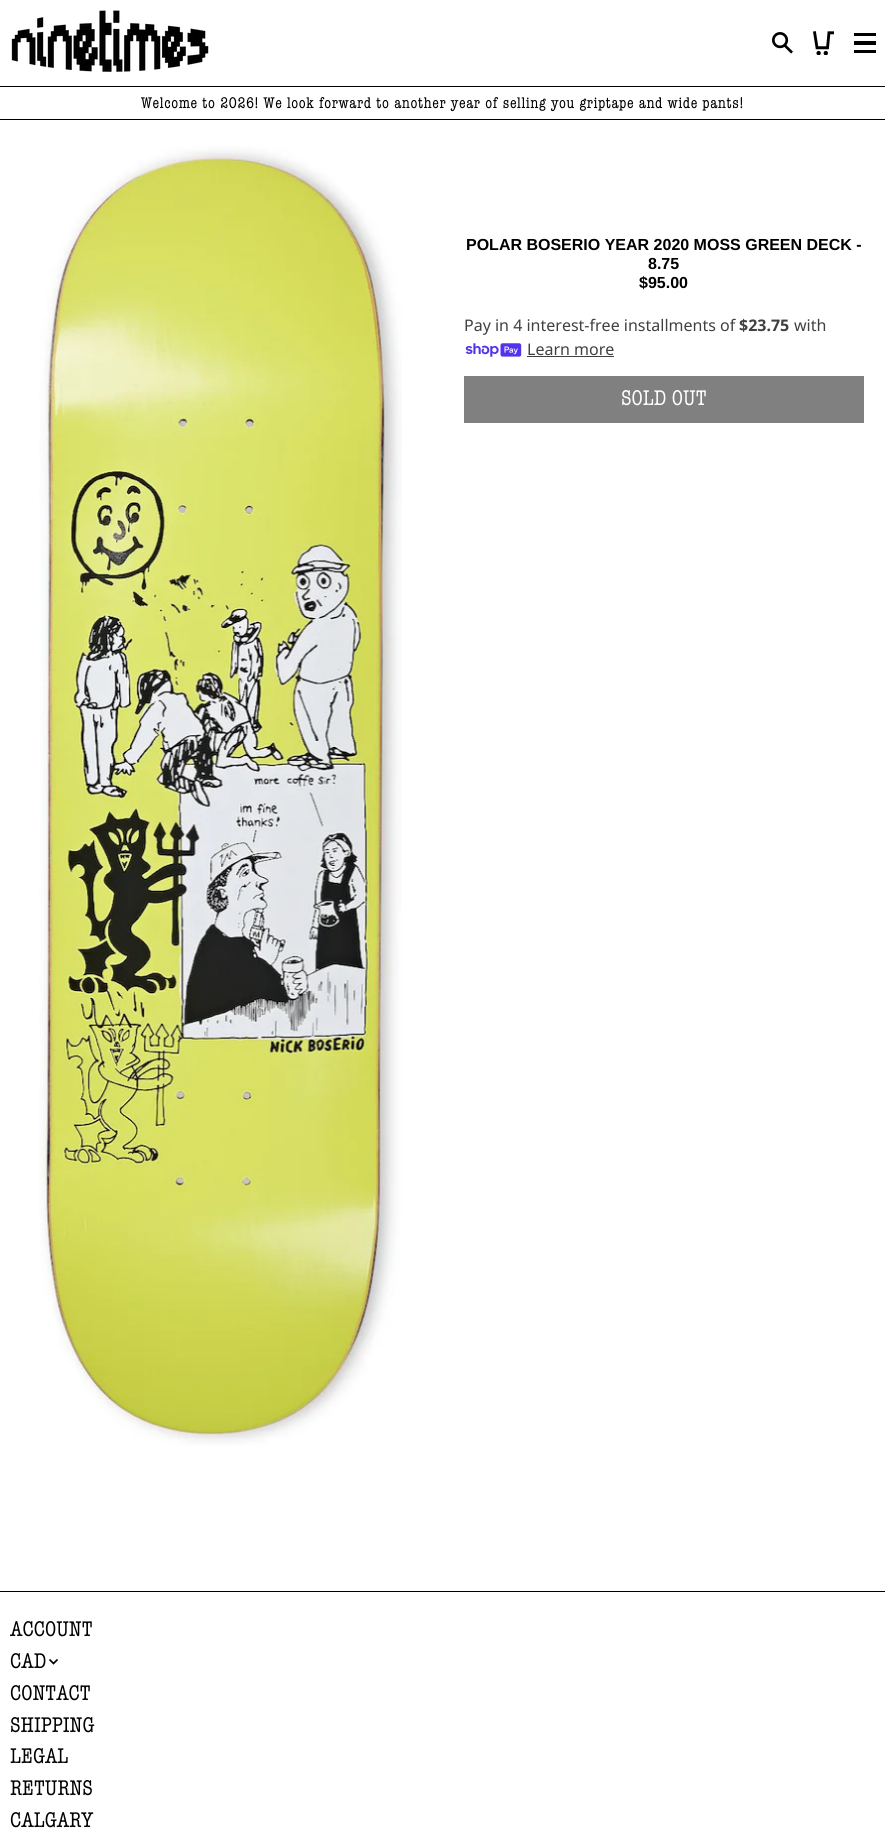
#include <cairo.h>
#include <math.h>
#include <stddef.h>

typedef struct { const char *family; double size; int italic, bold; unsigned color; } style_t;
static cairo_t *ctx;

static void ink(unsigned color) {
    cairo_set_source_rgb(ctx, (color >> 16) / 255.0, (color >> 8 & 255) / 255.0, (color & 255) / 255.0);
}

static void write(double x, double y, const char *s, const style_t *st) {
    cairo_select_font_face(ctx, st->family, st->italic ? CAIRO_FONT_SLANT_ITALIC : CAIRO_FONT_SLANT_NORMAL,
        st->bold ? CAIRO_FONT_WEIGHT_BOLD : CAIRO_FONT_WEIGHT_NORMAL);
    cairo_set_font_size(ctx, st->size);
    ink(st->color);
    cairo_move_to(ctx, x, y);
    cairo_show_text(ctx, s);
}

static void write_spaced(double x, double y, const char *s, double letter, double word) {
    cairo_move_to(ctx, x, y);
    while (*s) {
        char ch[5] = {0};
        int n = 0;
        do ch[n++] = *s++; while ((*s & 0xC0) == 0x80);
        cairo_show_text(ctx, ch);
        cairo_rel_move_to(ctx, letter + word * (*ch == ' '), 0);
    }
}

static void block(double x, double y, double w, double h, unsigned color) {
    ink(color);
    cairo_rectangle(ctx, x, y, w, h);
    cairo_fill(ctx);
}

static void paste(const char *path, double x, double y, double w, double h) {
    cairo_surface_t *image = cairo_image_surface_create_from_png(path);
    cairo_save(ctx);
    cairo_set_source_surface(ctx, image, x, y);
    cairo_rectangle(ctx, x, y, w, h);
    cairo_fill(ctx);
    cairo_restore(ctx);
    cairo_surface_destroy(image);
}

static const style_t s1 = {"Liberation Sans", 16, 0, 1, 0x000000};
static const style_t s2 = {"Noto Sans", 16, 0, 0, 0x404040};
static const style_t s3 = {"Noto Sans", 16, 0, 1, 0x404040};
static const style_t s4 = {"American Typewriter", 22, 0, 0, 0xffffff};
static const style_t s5 = {"American Typewriter", 22, 0, 0, 0x000000};

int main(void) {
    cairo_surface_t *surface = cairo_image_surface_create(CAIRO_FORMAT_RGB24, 885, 1840);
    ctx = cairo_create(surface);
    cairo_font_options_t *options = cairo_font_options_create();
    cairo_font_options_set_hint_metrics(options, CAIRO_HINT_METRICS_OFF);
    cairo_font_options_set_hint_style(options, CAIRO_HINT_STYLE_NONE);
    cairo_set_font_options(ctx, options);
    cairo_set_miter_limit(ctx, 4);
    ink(0xffffff);
    cairo_paint(ctx);
    block(0, 86, 885, 1, 0x000000);
    paste("pic1.png", 11, 10, 198, 62);
    paste("pic2.png", 772, 32, 21, 22);
    paste("pic3.png", 813, 31, 21, 24);
    block(854, 33, 22, 3, 0x000000);
    block(854, 50, 22, 3, 0x000000);
    block(854, 41, 22, 4, 0x000000);
    block(0, 119, 885, 1, 0x000000);
    cairo_select_font_face(ctx, "American Typewriter", CAIRO_FONT_SLANT_NORMAL, CAIRO_FONT_WEIGHT_NORMAL);
    cairo_set_font_size(ctx, 16);
    write_spaced(141, 108, "Welcome to 2026! We look forward to another year of selling you griptape and wide pants!", 0.6, 0);
    paste("pic4.png", 39, 146, 363, 1300);
    write(466, 250, "POLAR BOSERIO YEAR 2020 MOSS GREEN DECK -", &s1);
    write(648, 269, "8.75", &s1);
    write(639, 288, "$95.00", &s1);
    write(464, 331, "Pay in 4 interest-free installments of", &s2);
    write(739, 331, "$23.75", &s3);
    write(794, 331, "with", &s2);
    paste("pic5.png", 465, 343, 57, 14);
    write(527, 355, "Learn more", &s2);
    block(527, 356, 87, 1, 0x404040);
    block(464, 376, 400, 47, 0x808080);
    write(621, 405, "SOLD OUT", &s4);
    block(0, 1591, 885, 1, 0x000000);
    write(10, 1636, "ACCOUNT", &s5);
    write(10, 1668, "CAD", &s5);
    cairo_new_path(ctx);
    cairo_move_to(ctx, 49.5, 1659.5);
    cairo_line_to(ctx, 53.5, 1663.5);
    cairo_line_to(ctx, 57.5, 1659.5);
    cairo_set_line_width(ctx, 1.7);
    cairo_stroke(ctx);
    write(10, 1700, "CONTACT", &s5);
    write(10, 1732, "SHIPPING", &s5);
    write(10, 1763, "LEGAL", &s5);
    write(10, 1795, "RETURNS", &s5);
    write(10, 1827, "CALGARY", &s5);
    cairo_surface_write_to_png(surface, "screenshot.png");
    cairo_font_options_destroy(options);
    cairo_destroy(ctx);
    cairo_surface_destroy(surface);
    return 0;
}
